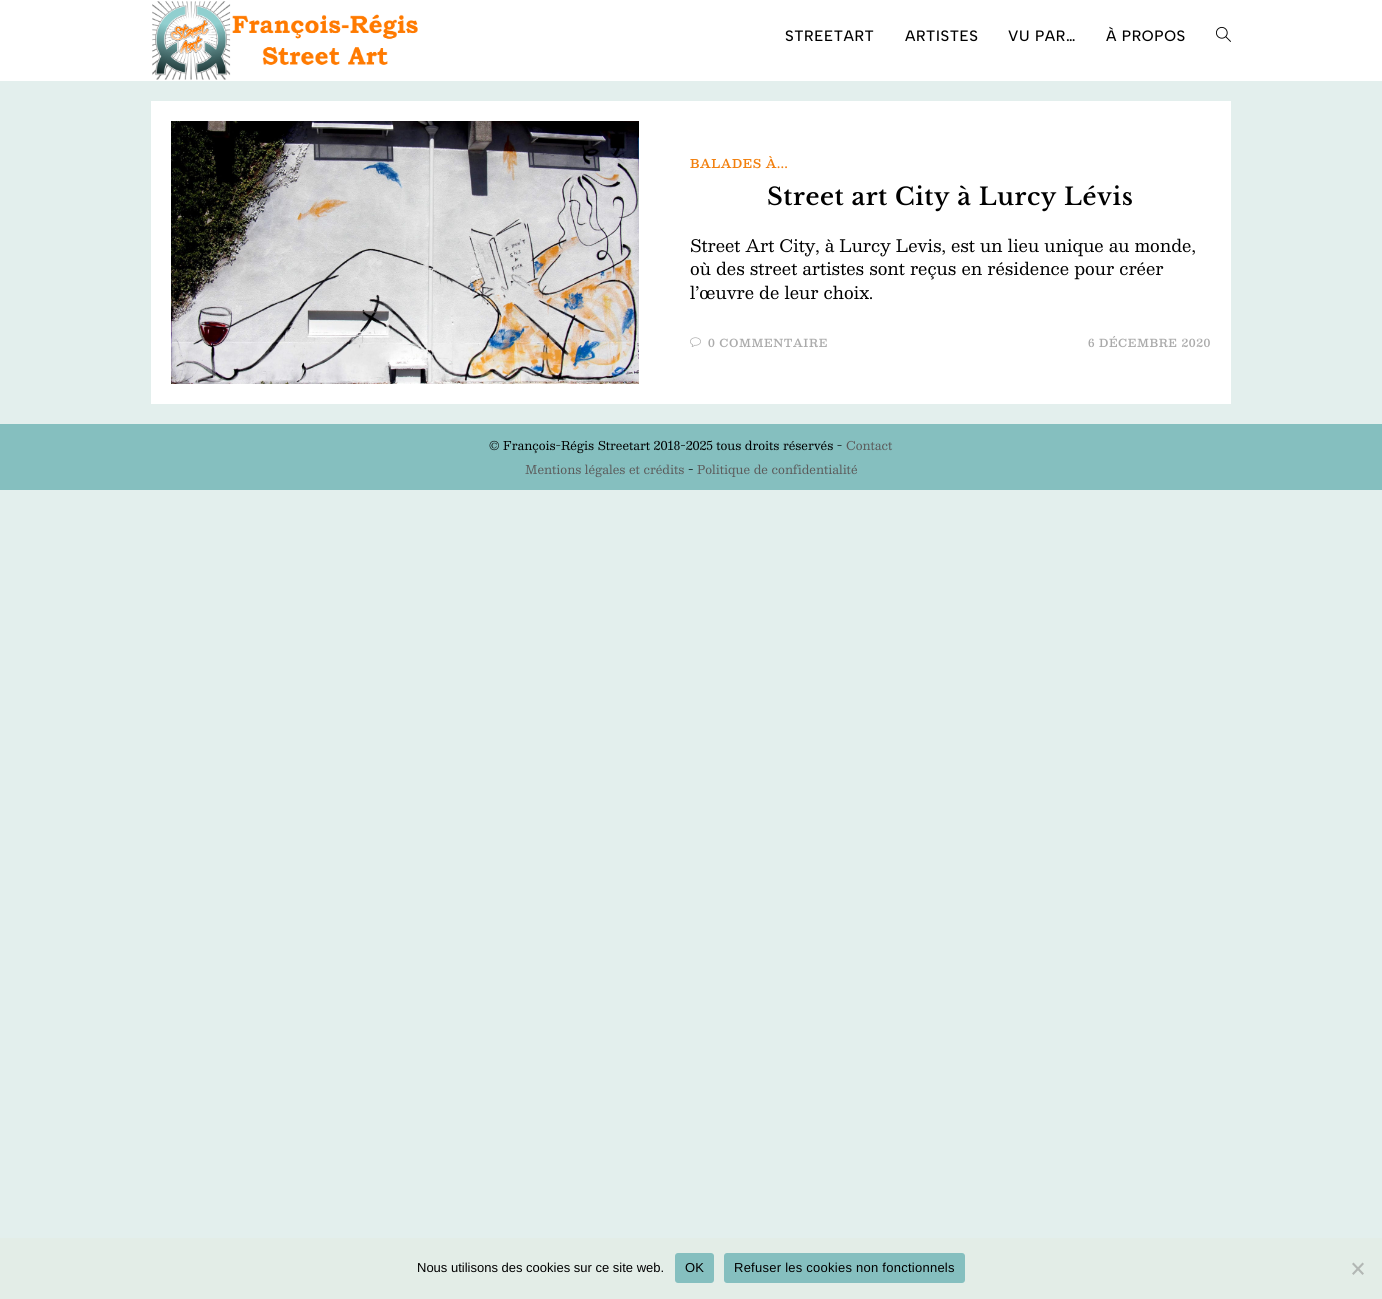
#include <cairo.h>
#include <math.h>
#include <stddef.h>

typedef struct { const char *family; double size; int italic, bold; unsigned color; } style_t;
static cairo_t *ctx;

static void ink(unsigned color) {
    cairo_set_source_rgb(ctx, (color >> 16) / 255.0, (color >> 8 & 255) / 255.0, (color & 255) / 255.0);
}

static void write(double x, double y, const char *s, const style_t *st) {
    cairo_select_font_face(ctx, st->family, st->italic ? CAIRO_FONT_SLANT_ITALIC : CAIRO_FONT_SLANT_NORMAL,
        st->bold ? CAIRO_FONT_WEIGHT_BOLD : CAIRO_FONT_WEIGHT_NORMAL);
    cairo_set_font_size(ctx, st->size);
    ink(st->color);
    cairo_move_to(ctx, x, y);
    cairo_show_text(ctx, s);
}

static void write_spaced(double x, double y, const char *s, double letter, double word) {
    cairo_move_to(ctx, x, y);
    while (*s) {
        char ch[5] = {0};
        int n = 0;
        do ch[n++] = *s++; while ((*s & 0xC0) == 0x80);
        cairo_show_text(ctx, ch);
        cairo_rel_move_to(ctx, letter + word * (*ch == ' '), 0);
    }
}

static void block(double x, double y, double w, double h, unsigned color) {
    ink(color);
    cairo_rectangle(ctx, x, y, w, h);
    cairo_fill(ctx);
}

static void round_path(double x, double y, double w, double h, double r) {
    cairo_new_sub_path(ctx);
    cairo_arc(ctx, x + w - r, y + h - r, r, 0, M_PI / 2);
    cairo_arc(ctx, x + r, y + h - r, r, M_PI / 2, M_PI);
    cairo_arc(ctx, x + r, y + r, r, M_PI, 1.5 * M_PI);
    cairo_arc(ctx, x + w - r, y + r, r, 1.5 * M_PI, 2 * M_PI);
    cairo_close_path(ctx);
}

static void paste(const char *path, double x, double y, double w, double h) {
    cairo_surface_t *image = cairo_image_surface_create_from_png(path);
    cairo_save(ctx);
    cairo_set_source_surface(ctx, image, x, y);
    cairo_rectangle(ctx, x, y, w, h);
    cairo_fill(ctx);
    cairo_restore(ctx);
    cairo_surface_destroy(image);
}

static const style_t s1 = {"Besley", 17, 0, 0, 0x000000};
static const style_t s2 = {"Besley", 12, 0, 0, 0x000000};
static const style_t s3 = {"Besley", 12, 0, 0, 0x5b5b5b};
static const style_t s4 = {"Liberation Sans", 13, 0, 0, 0x000000};

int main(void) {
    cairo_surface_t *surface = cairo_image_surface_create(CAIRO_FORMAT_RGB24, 1382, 1299);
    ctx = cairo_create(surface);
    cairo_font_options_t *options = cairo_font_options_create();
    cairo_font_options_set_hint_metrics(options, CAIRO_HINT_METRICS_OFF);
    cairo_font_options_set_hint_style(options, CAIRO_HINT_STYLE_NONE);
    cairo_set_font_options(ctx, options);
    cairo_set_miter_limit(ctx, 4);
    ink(0xe3efed);
    cairo_paint(ctx);
    block(0, 0, 1382, 81, 0xffffff);
    paste("pic1.png", 152, 1, 266, 79);
    cairo_select_font_face(ctx, "Albert Sans Medium", CAIRO_FONT_SLANT_NORMAL, CAIRO_FONT_WEIGHT_NORMAL);
    cairo_set_font_size(ctx, 15);
    ink(0x000000);
    write_spaced(785, 41, "STREETART", 0.6, 0);
    write_spaced(905, 41, "ARTISTES", 0.6, 0);
    write_spaced(1008, 41, "VU PAR…", 0.6, 0);
    write_spaced(1106, 41, "À PROPOS", 0.6, 0);
    paste("pic2.png", 1216, 26, 15, 16);
    block(151, 101, 1080, 303, 0xffffff);
    paste("pic3.png", 171, 121, 468, 263);
    cairo_select_font_face(ctx, "Besley SemiBold", CAIRO_FONT_SLANT_NORMAL, CAIRO_FONT_WEIGHT_NORMAL);
    cairo_set_font_size(ctx, 12);
    ink(0xf2800e);
    write_spaced(690, 168, "BALADES À...", 0.6, 0);
    cairo_select_font_face(ctx, "Libre Baskerville SemiBold", CAIRO_FONT_SLANT_NORMAL, CAIRO_FONT_WEIGHT_NORMAL);
    cairo_set_font_size(ctx, 24);
    ink(0x000000);
    write_spaced(767, 205, "Street art City à Lurcy Lévis", 0.6, 0);
    write(690, 252, "Street Art City, à Lurcy Levis, est un lieu unique au monde,", &s1);
    write(690, 275, "où des street artistes sont reçus en résidence pour créer", &s1);
    write(690, 299, "l’œuvre de leur choix.", &s1);
    paste("pic4.png", 690, 337, 11, 10);
    cairo_select_font_face(ctx, "Besley SemiBold", CAIRO_FONT_SLANT_NORMAL, CAIRO_FONT_WEIGHT_NORMAL);
    cairo_set_font_size(ctx, 11);
    ink(0xababab);
    write_spaced(708, 347, "0 COMMENTAIRE", 0.6, 0);
    write_spaced(1088, 347, "6 DÉCEMBRE 2020", 0.6, 0);
    block(0, 424, 1382, 66, 0x85bfbf);
    write(489, 450, "© François-Régis Streetart 2018-2025 tous droits réservés -", &s2);
    write(846, 450, "Contact", &s3);
    write(525, 474, "Mentions légales et crédits", &s3);
    write(688, 474, "-", &s2);
    write(697, 474, "Politique de confidentialité", &s3);
    block(0, 1238, 1382, 61, 0xe3ede7);
    write(417, 1272, "Nous utilisons des cookies sur ce site web.", &s4);
    ink(0x85bfbf);
    round_path(675, 1253, 39, 30, 3);
    cairo_fill(ctx);
    ink(0x000000);
    write_spaced(685, 1272, "OK", 0.25, 0);
    ink(0x85bfbf);
    round_path(724, 1253, 241, 30, 3);
    cairo_fill(ctx);
    ink(0x000000);
    write_spaced(734, 1272, "Refuser les cookies non fonctionnels", 0.25, 0);
    ink(0xb2b7b4);
    cairo_new_path(ctx);
    cairo_move_to(ctx, 1362.5, 1262.5);
    cairo_line_to(ctx, 1364, 1264);
    cairo_line_to(ctx, 1353.5, 1275);
    cairo_line_to(ctx, 1352, 1273.5);
    cairo_close_path(ctx);
    cairo_fill(ctx);
    cairo_new_path(ctx);
    cairo_move_to(ctx, 1352, 1264);
    cairo_line_to(ctx, 1353.5, 1262.5);
    cairo_line_to(ctx, 1364, 1273.5);
    cairo_line_to(ctx, 1362.5, 1275);
    cairo_close_path(ctx);
    cairo_fill(ctx);
    cairo_surface_write_to_png(surface, "screenshot.png");
    cairo_font_options_destroy(options);
    cairo_destroy(ctx);
    cairo_surface_destroy(surface);
    return 0;
}
